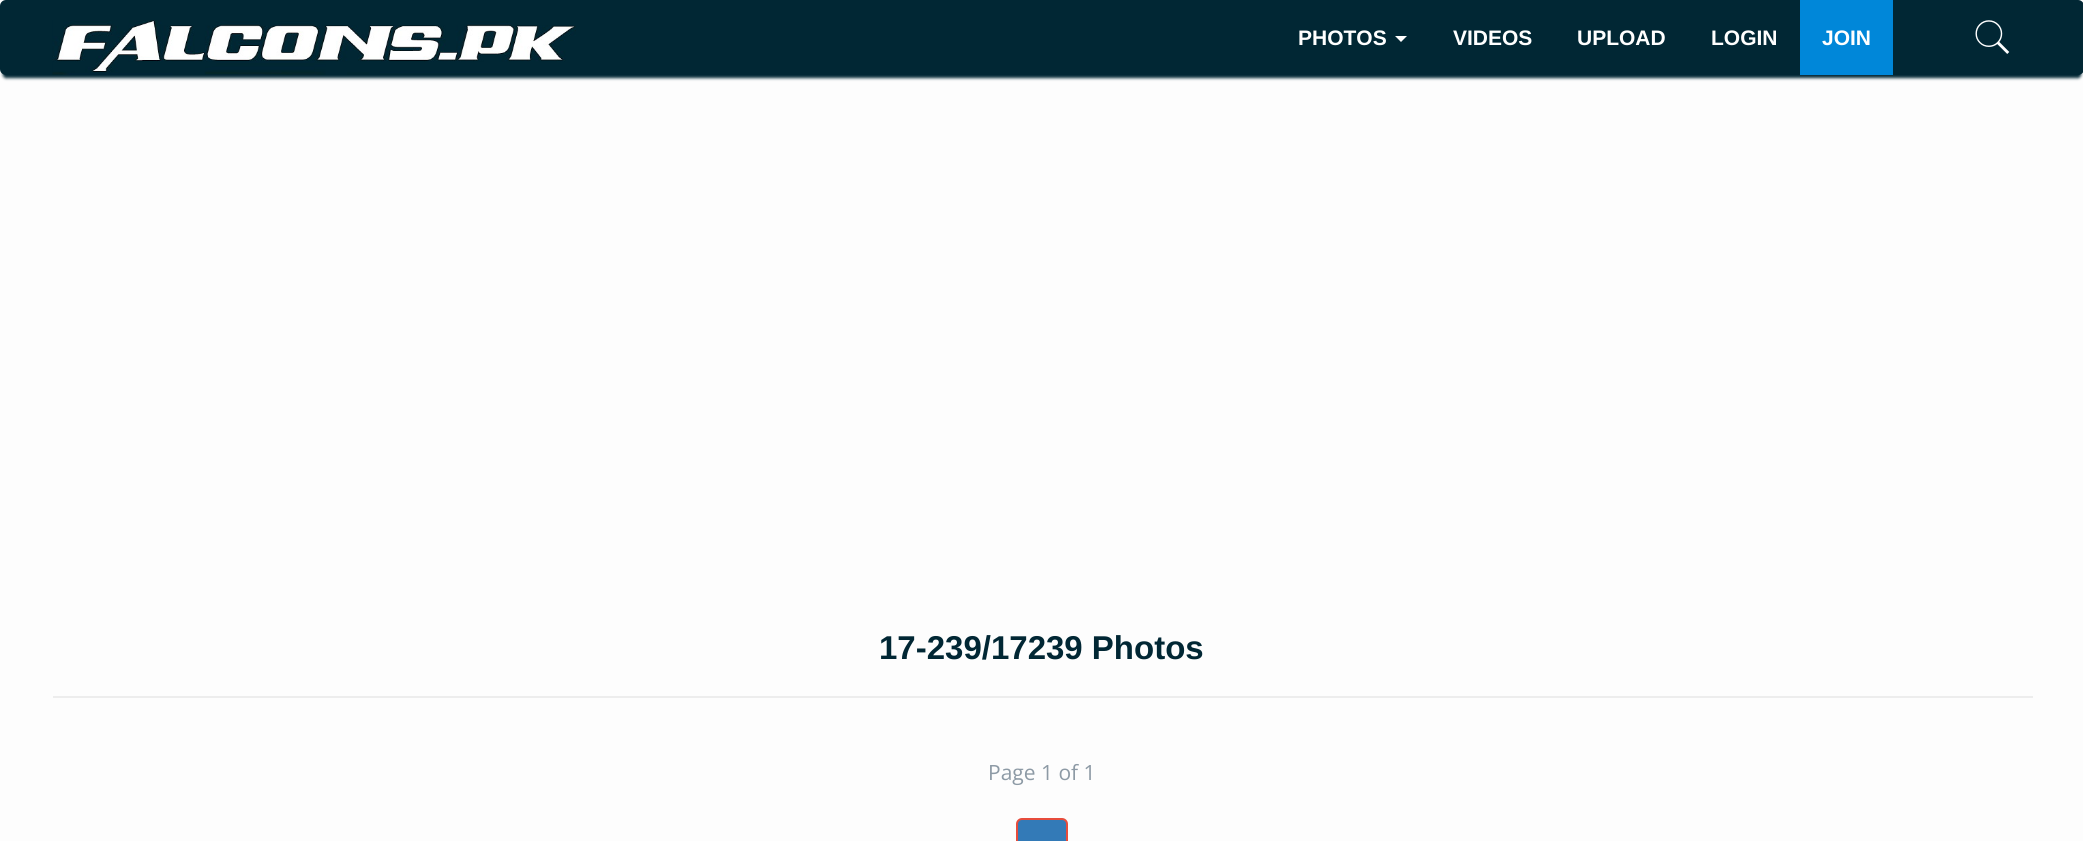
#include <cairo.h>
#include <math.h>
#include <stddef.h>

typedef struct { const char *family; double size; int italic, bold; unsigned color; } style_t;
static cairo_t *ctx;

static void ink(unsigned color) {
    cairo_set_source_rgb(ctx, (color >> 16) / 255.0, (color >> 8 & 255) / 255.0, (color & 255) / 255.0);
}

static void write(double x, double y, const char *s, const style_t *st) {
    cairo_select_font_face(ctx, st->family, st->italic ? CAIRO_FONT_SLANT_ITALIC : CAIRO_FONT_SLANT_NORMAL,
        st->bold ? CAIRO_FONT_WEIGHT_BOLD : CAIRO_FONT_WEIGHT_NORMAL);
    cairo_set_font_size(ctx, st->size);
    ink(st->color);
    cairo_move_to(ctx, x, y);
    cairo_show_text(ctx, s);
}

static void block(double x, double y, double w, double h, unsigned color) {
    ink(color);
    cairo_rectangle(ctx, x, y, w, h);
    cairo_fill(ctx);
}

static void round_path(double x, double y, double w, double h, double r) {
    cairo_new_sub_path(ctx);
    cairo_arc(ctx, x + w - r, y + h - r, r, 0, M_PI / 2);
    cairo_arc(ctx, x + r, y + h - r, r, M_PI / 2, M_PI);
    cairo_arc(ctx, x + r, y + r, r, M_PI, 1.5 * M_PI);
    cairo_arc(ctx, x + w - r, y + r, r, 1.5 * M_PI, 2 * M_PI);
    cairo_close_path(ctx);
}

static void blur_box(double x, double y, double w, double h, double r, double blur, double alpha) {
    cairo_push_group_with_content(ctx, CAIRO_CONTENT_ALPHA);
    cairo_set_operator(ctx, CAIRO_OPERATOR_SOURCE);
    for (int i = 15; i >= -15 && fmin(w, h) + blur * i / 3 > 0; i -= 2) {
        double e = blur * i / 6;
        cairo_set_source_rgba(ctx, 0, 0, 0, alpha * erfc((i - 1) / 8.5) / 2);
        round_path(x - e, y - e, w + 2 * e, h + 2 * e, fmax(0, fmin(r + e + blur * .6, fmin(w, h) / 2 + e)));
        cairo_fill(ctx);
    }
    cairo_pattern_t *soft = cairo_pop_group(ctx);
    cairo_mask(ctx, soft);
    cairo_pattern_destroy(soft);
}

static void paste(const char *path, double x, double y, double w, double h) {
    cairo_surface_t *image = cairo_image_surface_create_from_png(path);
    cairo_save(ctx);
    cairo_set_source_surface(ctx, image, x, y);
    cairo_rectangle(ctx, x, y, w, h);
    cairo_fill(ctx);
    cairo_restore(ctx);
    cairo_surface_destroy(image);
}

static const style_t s1 = {"Liberation Sans", 21, 0, 1, 0xffffff};
static const style_t s2 = {"Liberation Sans", 33, 0, 1, 0x012734};
static const style_t s3 = {"Open Sans", 21, 0, 0, 0x8d9aa5};

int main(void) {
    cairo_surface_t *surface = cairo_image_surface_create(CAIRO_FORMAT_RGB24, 2083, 841);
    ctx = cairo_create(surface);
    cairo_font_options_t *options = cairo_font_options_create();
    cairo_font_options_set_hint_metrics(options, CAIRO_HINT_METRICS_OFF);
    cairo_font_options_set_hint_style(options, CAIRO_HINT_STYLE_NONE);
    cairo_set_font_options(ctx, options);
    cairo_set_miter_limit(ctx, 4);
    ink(0xfdfdfd);
    cairo_paint(ctx);
    ink(0x012734);
    blur_box(3, 9, 2078, 69, 3, 1.5, 1);
    ink(0x012734);
    round_path(0, 0, 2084, 75, 6);
    cairo_fill(ctx);
    paste("pic1.png", 52, 20, 524, 55);
    write(1298, 45, "PHOTOS", &s1);
    cairo_new_path(ctx);
    cairo_move_to(ctx, 1395, 36);
    cairo_line_to(ctx, 1407, 36);
    cairo_line_to(ctx, 1401, 42);
    cairo_close_path(ctx);
    cairo_fill(ctx);
    write(1453, 45, "VIDEOS", &s1);
    write(1577, 45, "UPLOAD", &s1);
    write(1711, 45, "LOGIN", &s1);
    block(1800, 0, 93, 75, 0x0087d9);
    write(1822, 45, "JOIN", &s1);
    paste("pic2.png", 1975, 20, 35, 34);
    write(879, 659, "17-239/17239 Photos", &s2);
    block(53, 696, 1980, 2, 0xededed);
    write(988, 780, "Page 1 of 1", &s3);
    ink(0x337ab7);
    round_path(1017, 819, 50, 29, 5);
    cairo_fill_preserve(ctx);
    ink(0xe74c3c);
    cairo_stroke(ctx);
    cairo_surface_write_to_png(surface, "screenshot.png");
    cairo_font_options_destroy(options);
    cairo_destroy(ctx);
    cairo_surface_destroy(surface);
    return 0;
}
